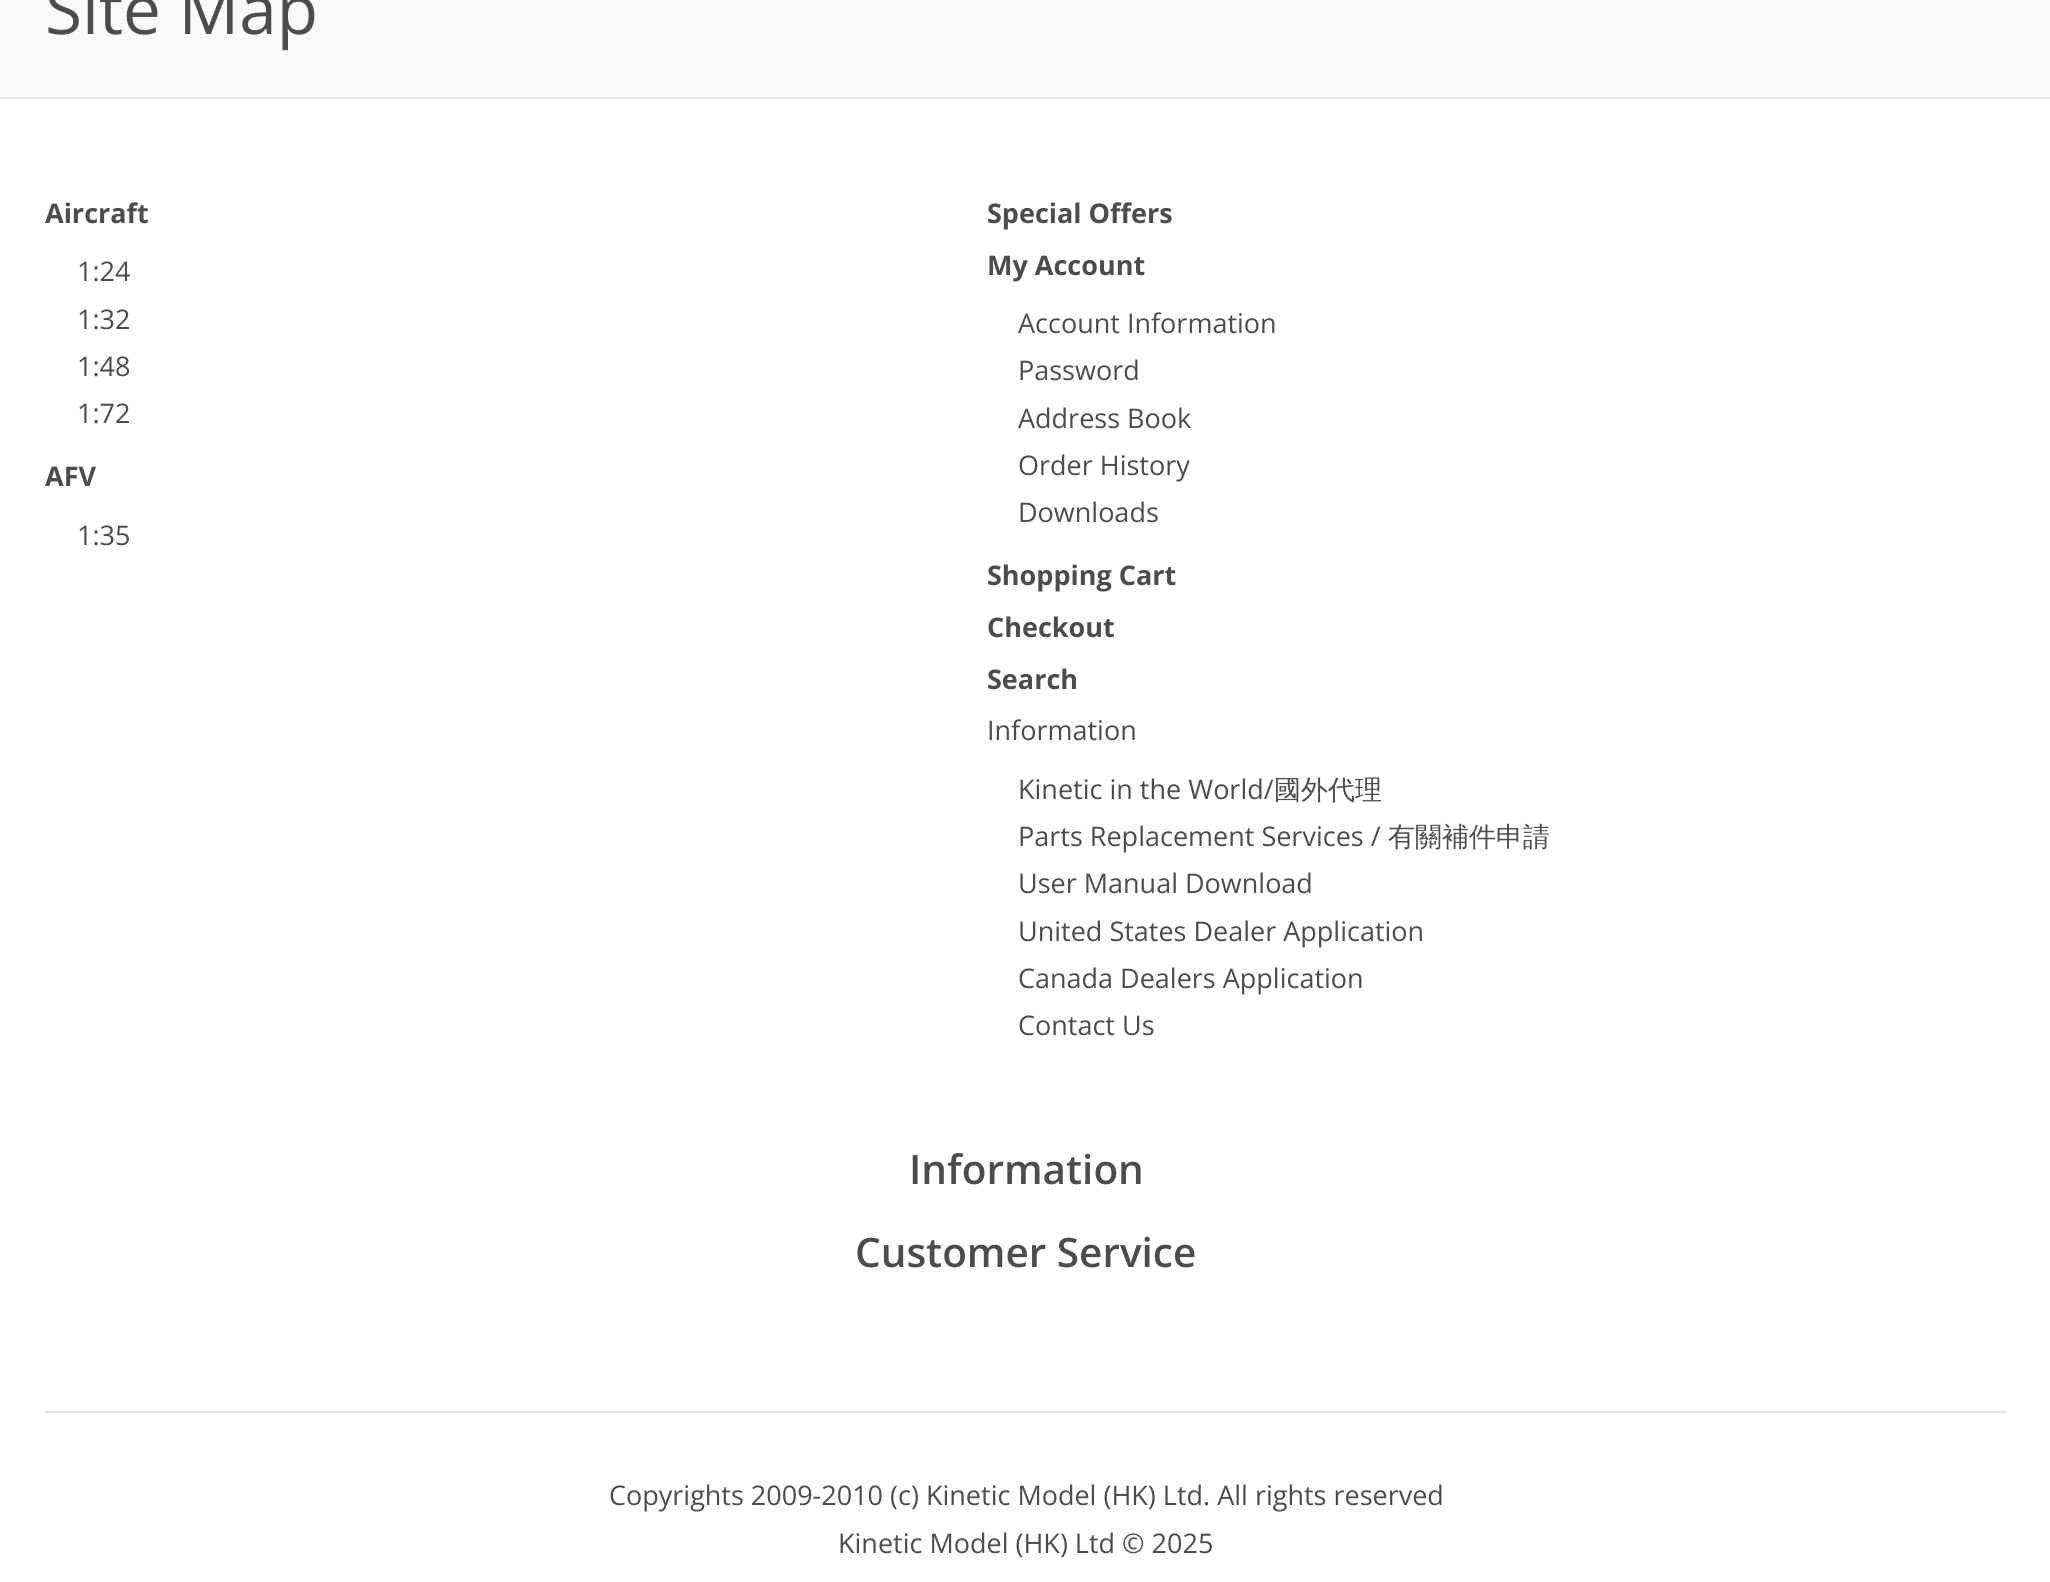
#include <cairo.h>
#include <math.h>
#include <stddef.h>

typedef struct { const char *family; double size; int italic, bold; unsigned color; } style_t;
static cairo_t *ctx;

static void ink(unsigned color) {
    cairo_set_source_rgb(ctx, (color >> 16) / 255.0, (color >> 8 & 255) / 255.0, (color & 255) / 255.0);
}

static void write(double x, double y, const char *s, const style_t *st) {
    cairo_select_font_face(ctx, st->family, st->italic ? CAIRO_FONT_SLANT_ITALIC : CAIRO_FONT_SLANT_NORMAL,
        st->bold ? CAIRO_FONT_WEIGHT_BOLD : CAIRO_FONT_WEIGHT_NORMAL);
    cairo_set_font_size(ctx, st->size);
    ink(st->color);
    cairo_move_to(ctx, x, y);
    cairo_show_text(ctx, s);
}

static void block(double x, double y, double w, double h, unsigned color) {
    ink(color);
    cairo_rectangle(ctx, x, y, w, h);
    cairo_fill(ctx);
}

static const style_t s1 = {"Open Sans", 67.5, 0, 0, 0x4c4c4c};
static const style_t s2 = {"Open Sans", 27, 0, 1, 0x4c4c4c};
static const style_t s3 = {"Open Sans", 27, 0, 0, 0x4c4c4c};
static const style_t s4 = {"WenQuanYi Zen Hei Medium", 27, 0, 0, 0x4c4c4c};
static const style_t s5 = {"Open Sans SemiBold", 40.5, 0, 0, 0x4c4c4c};

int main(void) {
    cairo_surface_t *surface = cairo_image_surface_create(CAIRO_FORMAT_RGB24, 2050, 1582);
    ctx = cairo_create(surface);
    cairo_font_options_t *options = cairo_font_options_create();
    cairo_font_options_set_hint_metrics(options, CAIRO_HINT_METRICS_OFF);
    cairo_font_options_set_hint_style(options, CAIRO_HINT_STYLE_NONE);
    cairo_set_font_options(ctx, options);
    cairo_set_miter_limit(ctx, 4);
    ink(0xffffff);
    cairo_paint(ctx);
    block(0, 0, 2050, 97, 0xfafafa);
    block(0, 97, 2050, 2, 0xe7e7e7);
    write(45, 34, "Site Map", &s1);
    write(45, 223, "Aircraft", &s2);
    write(77, 281, "1:24", &s3);
    write(77, 329, "1:32", &s3);
    write(77, 376, "1:48", &s3);
    write(77, 423, "1:72", &s3);
    write(45, 486, "AFV", &s2);
    write(77, 545, "1:35", &s3);
    write(987, 223, "Special Offers", &s2);
    write(987, 275, "My Account", &s2);
    write(1018, 333, "Account Information", &s3);
    write(1018, 380, "Password", &s3);
    write(1018, 428, "Address Book", &s3);
    write(1018, 475, "Order History", &s3);
    write(1018, 522, "Downloads", &s3);
    write(987, 585, "Shopping Cart", &s2);
    write(987, 637, "Checkout", &s2);
    write(987, 689, "Search", &s2);
    write(987, 740, "Information", &s3);
    write(1018, 799, "Kinetic in the World/", &s3);
    write(1274, 799, "國外代理", &s4);
    write(1018, 846, "Parts Replacement Services /", &s3);
    write(1388, 846, "有關補件申請", &s4);
    write(1018, 893, "User Manual Download", &s3);
    write(1018, 941, "United States Dealer Application", &s3);
    write(1018, 988, "Canada Dealers Application", &s3);
    write(1018, 1035, "Contact Us", &s3);
    write(909, 1184, "Information", &s5);
    write(855, 1267, "Customer Service", &s5);
    block(45, 1411, 1962, 2, 0xe5e5e5);
    write(609, 1505, "Copyrights 2009-2010 (c) Kinetic Model (HK) Ltd. All rights reserved", &s3);
    write(838, 1553, "Kinetic Model (HK) Ltd © 2025", &s3);
    cairo_surface_write_to_png(surface, "screenshot.png");
    cairo_font_options_destroy(options);
    cairo_destroy(ctx);
    cairo_surface_destroy(surface);
    return 0;
}
